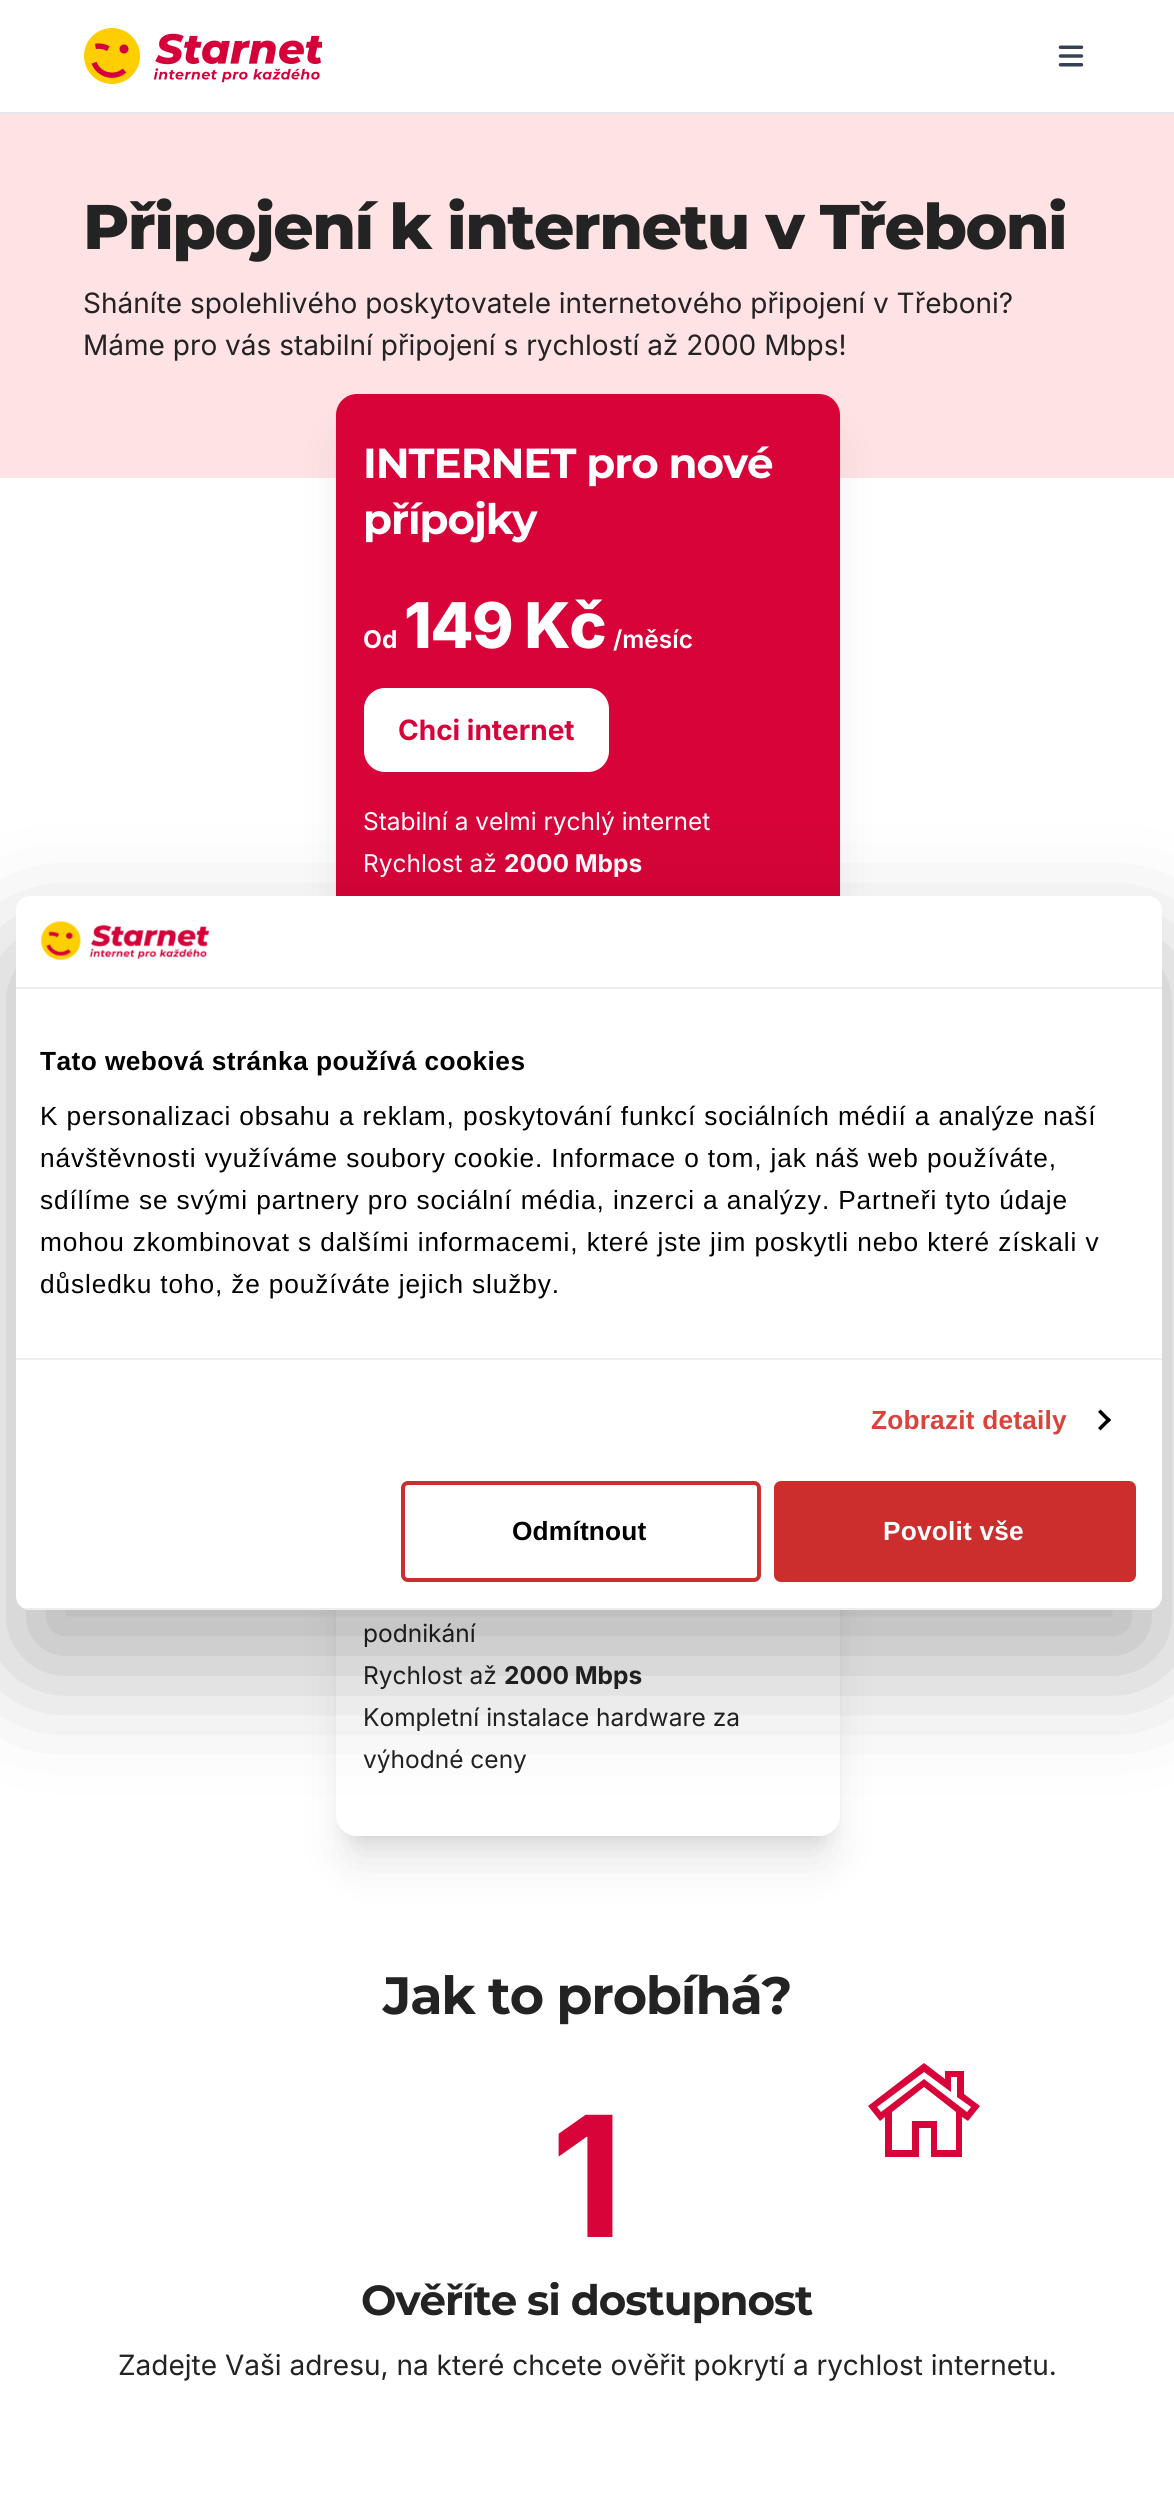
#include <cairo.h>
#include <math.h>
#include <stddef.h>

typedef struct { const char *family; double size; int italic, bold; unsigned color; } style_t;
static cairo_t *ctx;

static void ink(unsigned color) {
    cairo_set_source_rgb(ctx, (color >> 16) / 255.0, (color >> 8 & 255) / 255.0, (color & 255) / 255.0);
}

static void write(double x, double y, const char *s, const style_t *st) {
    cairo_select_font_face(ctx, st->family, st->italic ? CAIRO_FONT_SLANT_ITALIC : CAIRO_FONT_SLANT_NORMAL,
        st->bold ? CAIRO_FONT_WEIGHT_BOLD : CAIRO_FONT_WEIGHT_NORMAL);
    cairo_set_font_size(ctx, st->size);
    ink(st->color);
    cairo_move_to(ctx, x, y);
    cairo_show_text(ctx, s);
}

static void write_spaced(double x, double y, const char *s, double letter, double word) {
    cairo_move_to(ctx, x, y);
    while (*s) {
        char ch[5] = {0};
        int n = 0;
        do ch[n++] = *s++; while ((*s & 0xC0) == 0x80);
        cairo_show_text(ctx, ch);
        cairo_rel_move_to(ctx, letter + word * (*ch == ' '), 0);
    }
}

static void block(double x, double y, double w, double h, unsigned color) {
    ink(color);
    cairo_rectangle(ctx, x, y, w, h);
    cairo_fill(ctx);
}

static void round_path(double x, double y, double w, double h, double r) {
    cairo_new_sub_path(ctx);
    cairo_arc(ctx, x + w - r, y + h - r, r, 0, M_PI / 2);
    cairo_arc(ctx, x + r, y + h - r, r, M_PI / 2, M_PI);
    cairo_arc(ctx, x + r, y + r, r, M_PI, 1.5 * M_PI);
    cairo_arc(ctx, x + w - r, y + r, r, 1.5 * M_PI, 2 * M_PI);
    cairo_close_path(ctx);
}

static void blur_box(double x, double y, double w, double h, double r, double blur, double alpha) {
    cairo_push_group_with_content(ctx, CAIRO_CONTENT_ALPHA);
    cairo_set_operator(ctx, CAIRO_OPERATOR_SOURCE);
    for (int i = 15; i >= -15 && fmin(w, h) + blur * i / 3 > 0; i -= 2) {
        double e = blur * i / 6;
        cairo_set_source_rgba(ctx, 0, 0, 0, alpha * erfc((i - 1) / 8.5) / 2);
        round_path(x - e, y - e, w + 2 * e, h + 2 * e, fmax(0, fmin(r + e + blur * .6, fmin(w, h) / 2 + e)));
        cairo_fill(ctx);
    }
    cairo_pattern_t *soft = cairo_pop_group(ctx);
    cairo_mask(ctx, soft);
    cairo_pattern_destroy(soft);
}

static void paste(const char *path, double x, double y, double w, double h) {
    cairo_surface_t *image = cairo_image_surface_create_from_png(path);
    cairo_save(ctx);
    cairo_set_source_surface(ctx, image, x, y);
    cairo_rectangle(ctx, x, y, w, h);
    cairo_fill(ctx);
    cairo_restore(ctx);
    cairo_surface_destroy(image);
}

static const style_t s1 = {"Inter", 28, 0, 0, 0x232323};
static const style_t s2 = {"Inter", 24.5, 0, 1, 0xffffff};
static const style_t s3 = {"Inter SemiBold", 24.5, 0, 0, 0xffffff};
static const style_t s4 = {"Inter", 28, 0, 1, 0xd70339};
static const style_t s5 = {"Inter", 24.5, 0, 0, 0xffffff};
static const style_t s6 = {"Inter", 24.5, 0, 0, 0x232323};
static const style_t s7 = {"Inter", 24.5, 0, 1, 0x232323};
static const style_t s8 = {"Inter", 168, 0, 1, 0xd70339};

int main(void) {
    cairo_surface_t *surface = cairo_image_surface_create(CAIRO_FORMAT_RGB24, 1174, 2504);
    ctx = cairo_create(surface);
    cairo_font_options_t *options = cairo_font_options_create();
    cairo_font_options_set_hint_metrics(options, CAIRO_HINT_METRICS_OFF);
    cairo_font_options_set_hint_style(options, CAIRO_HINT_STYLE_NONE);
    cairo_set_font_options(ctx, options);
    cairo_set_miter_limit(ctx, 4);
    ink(0xffffff);
    cairo_paint(ctx);
    block(0, 112, 1174, 2, 0xe5e7eb);
    paste("pic1.png", 84, 28, 238, 56);
    paste("pic2.png", 1058, 45, 26, 22);
    block(0, 114, 1174, 364, 0xffe2e4);
    cairo_select_font_face(ctx, "Montserrat ExtraBold", CAIRO_FONT_SLANT_NORMAL, CAIRO_FONT_WEIGHT_NORMAL);
    cairo_set_font_size(ctx, 63);
    ink(0x232323);
    write_spaced(83, 249, "Připojení k internetu v Třeboni", -1.6, 0);
    write(83, 313, "Sháníte spolehlivého poskytovatele internetového připojení v Třeboni?", &s1);
    write(83, 355, "Máme pro vás stabilní připojení s rychlostí až 2000 Mbps!", &s1);
    ink(0x000000);
    blur_box(345, 438, 486, 654, 12, 22, 0.1);
    ink(0xd70339);
    round_path(336, 394, 504, 672, 21);
    cairo_fill(ctx);
    cairo_select_font_face(ctx, "Montserrat", CAIRO_FONT_SLANT_NORMAL, CAIRO_FONT_WEIGHT_BOLD);
    cairo_set_font_size(ctx, 42);
    ink(0xffffff);
    write_spaced(363, 478, "INTERNET pro nové", -1.05, 0);
    write_spaced(363, 534, "přípojky", -1.05, 0);
    write(363, 648, "Od", &s2);
    cairo_select_font_face(ctx, "Inter ExtraBold", CAIRO_FONT_SLANT_NORMAL, CAIRO_FONT_WEIGHT_NORMAL);
    cairo_set_font_size(ctx, 63);
    write_spaced(404, 648, "149 Kč", -1.6, 0);
    write(613, 648, "/měsíc", &s3);
    round_path(364, 688, 245, 84, 21);
    cairo_fill(ctx);
    write(398, 740, "Chci internet", &s4);
    write(363, 830, "Stabilní a velmi rychlý internet", &s5);
    write(363, 872, "Rychlost až", &s5);
    write(504, 872, "2000 Mbps", &s2);
    ink(0x000000);
    blur_box(347, 1146, 483, 693, 11, 9, 0.1);
    blur_box(345, 1166, 486, 696, 12, 22, 0.1);
    ink(0xffffff);
    round_path(336, 1122, 504, 714, 21);
    cairo_fill(ctx);
    write(363, 1642, "podnikání", &s6);
    write(363, 1684, "Rychlost až", &s6);
    write(504, 1684, "2000 Mbps", &s7);
    write(363, 1726, "Kompletní instalace hardware za", &s6);
    write(363, 1768, "výhodné ceny", &s6);
    cairo_select_font_face(ctx, "Montserrat", CAIRO_FONT_SLANT_NORMAL, CAIRO_FONT_WEIGHT_BOLD);
    cairo_set_font_size(ctx, 52.5);
    write_spaced(383, 2014, "Jak to probíhá?", -1.25, 0);
    write(551, 2237, "1", &s8);
    cairo_new_path(ctx);
    cairo_move_to(ctx, 964, 2094);
    cairo_line_to(ctx, 964, 2071);
    cairo_line_to(ctx, 945, 2071);
    cairo_line_to(ctx, 945, 2079);
    cairo_line_to(ctx, 924, 2063);
    cairo_line_to(ctx, 868, 2106);
    cairo_line_to(ctx, 880, 2121);
    cairo_line_to(ctx, 885, 2117);
    cairo_line_to(ctx, 885, 2157);
    cairo_line_to(ctx, 919, 2157);
    cairo_line_to(ctx, 919, 2128);
    cairo_line_to(ctx, 931, 2128);
    cairo_line_to(ctx, 931, 2157);
    cairo_line_to(ctx, 962, 2157);
    cairo_line_to(ctx, 962, 2117);
    cairo_line_to(ctx, 968, 2121);
    cairo_line_to(ctx, 980, 2106);
    cairo_close_path(ctx);
    cairo_move_to(ctx, 956, 2150);
    cairo_line_to(ctx, 937, 2150);
    cairo_line_to(ctx, 937, 2121);
    cairo_line_to(ctx, 912, 2121);
    cairo_line_to(ctx, 912, 2150);
    cairo_line_to(ctx, 892, 2150);
    cairo_line_to(ctx, 892, 2112);
    cairo_line_to(ctx, 924, 2087);
    cairo_line_to(ctx, 956, 2112);
    cairo_close_path(ctx);
    cairo_move_to(ctx, 967, 2112);
    cairo_line_to(ctx, 924, 2079);
    cairo_line_to(ctx, 881, 2112);
    cairo_line_to(ctx, 877, 2107);
    cairo_line_to(ctx, 924, 2072);
    cairo_line_to(ctx, 951, 2092);
    cairo_line_to(ctx, 951, 2077);
    cairo_line_to(ctx, 957, 2077);
    cairo_line_to(ctx, 957, 2097);
    cairo_line_to(ctx, 971, 2107);
    cairo_close_path(ctx);
    cairo_fill(ctx);
    cairo_select_font_face(ctx, "Montserrat", CAIRO_FONT_SLANT_NORMAL, CAIRO_FONT_WEIGHT_BOLD);
    cairo_set_font_size(ctx, 42);
    ink(0x232323);
    write_spaced(361, 2315, "Ověříte si dostupnost", -1.05, 0);
    write(118, 2375, "Zadejte Vaši adresu, na které chcete ověřit pokrytí a rychlost internetu.", &s1);
    ink(0x000000);
    blur_box(16, 952, 1146, 714, 14, 59.5, 0.3);
    ink(0xffffff);
    round_path(16, 896, 1146, 714, 14);
    cairo_fill(ctx);
    block(16, 987, 1146, 2, 0xeeeeee);
    paste("pic3.png", 40, 921, 170, 39);
    block(16, 1358, 1146, 2, 0xeeeeee);
    cairo_select_font_face(ctx, "Liberation Sans", CAIRO_FONT_SLANT_NORMAL, CAIRO_FONT_WEIGHT_BOLD);
    cairo_set_font_size(ctx, 26.25);
    ink(0x000000);
    write_spaced(40, 1070, "Tato webová stránka používá cookies", 0.45, 0);
    cairo_select_font_face(ctx, "Liberation Sans", CAIRO_FONT_SLANT_NORMAL, CAIRO_FONT_WEIGHT_NORMAL);
    write_spaced(40, 1125, "K personalizaci obsahu a reklam, poskytování funkcí sociálních médií a analýze naší", 0.88, 0);
    write_spaced(40, 1167, "návštěvnosti využíváme soubory cookie. Informace o tom, jak náš web používáte,", 0.88, 0);
    write_spaced(40, 1209, "sdílíme se svými partnery pro sociální média, inzerci a analýzy. Partneři tyto údaje", 0.88, 0);
    write_spaced(40, 1251, "mohou zkombinovat s dalšími informacemi, které jste jim poskytli nebo které získali v", 0.88, 0);
    write_spaced(40, 1293, "důsledku toho, že používáte jejich služby.", 0.88, 0);
    cairo_select_font_face(ctx, "Liberation Sans", CAIRO_FONT_SLANT_NORMAL, CAIRO_FONT_WEIGHT_BOLD);
    ink(0xd8443c);
    write_spaced(871, 1429, "Zobrazit detaily", 0.2, 0);
    ink(0x000000);
    cairo_new_path(ctx);
    cairo_move_to(ctx, 1100.5, 1409.5);
    cairo_line_to(ctx, 1111, 1420);
    cairo_line_to(ctx, 1108.5, 1422.5);
    cairo_line_to(ctx, 1098, 1412);
    cairo_close_path(ctx);
    cairo_fill(ctx);
    cairo_new_path(ctx);
    cairo_move_to(ctx, 1108.5, 1417.5);
    cairo_line_to(ctx, 1111, 1420);
    cairo_line_to(ctx, 1100.5, 1430.5);
    cairo_line_to(ctx, 1098, 1428);
    cairo_close_path(ctx);
    cairo_fill(ctx);
    cairo_save(ctx);
    round_path(16, 896, 1146, 714, 14);
    cairo_clip(ctx);
    block(16, 1608, 1146, 2, 0xeeeeee);
    cairo_restore(ctx);
    round_path(403, 1483, 356, 97, 5);
    ink(0xcc2e2e);
    cairo_set_line_width(ctx, 4);
    cairo_stroke(ctx);
    ink(0x000000);
    write_spaced(512, 1540, "Odmítnout", 0.2, 0);
    ink(0xcc2e2e);
    round_path(776, 1483, 358, 97, 5);
    cairo_fill_preserve(ctx);
    cairo_stroke(ctx);
    ink(0xffffff);
    write_spaced(883, 1540, "Povolit vše", 0.2, 0);
    cairo_surface_write_to_png(surface, "screenshot.png");
    cairo_font_options_destroy(options);
    cairo_destroy(ctx);
    cairo_surface_destroy(surface);
    return 0;
}
